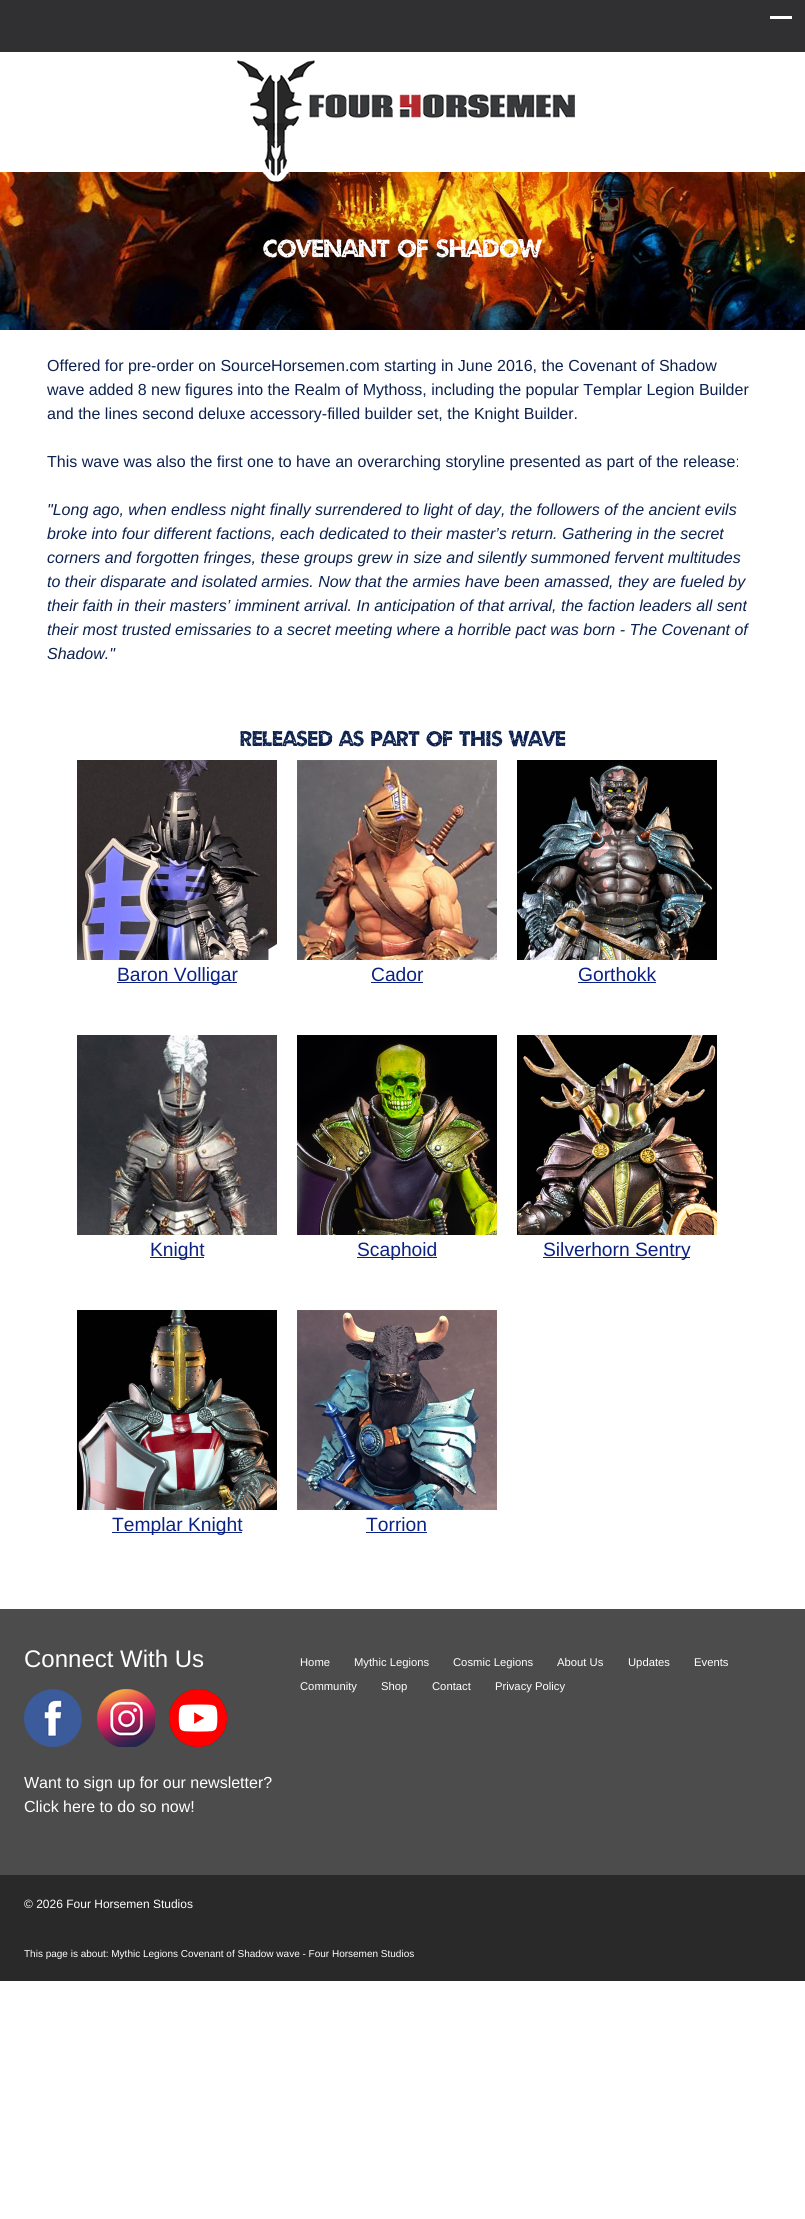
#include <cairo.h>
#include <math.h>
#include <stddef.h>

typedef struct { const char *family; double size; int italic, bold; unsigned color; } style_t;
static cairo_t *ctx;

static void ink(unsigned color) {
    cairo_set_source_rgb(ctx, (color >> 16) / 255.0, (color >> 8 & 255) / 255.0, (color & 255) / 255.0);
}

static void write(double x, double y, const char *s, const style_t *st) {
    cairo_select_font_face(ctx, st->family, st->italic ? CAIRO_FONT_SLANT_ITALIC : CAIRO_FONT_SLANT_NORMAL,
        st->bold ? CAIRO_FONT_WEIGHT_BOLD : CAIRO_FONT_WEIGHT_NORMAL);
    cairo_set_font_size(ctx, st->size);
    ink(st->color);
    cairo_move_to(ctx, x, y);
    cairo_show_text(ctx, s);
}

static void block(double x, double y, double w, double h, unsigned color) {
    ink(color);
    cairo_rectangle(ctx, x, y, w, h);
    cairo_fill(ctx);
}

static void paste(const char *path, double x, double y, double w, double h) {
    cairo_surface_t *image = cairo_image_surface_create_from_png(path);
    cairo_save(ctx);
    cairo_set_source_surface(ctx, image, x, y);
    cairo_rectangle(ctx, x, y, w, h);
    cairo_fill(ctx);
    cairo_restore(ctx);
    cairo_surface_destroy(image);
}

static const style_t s1 = {"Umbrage", 28, 0, 0, 0xffffff};
static const style_t s2 = {"Liberation Sans", 16, 0, 0, 0x0d214e};
static const style_t s3 = {"Liberation Sans", 16, 1, 0, 0x0d214e};
static const style_t s4 = {"Umbrage", 24, 0, 0, 0x0d214e};
static const style_t s5 = {"Liberation Sans", 19.25, 0, 0, 0x0b2284};
static const style_t s6 = {"Liberation Sans", 24, 0, 0, 0xffffff};
static const style_t s7 = {"Liberation Sans", 16, 0, 0, 0xffffff};
static const style_t s8 = {"Liberation Sans", 11.25, 0, 0, 0xffffff};
static const style_t s9 = {"Liberation Sans", 12, 0, 0, 0xffffff};
static const style_t s10 = {"Liberation Sans", 10, 0, 0, 0xffffff};

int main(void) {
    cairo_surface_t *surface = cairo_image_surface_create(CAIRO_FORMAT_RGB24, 805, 2219);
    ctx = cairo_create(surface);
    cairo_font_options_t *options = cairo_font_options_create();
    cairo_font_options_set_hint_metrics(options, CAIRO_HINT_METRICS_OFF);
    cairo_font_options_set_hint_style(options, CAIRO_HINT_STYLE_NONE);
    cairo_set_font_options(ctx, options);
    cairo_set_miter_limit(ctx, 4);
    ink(0xffffff);
    cairo_paint(ctx);
    block(0, 0, 805, 52, 0x303032);
    block(770, 16, 22, 3, 0xffffff);
    paste("pic2.png", 0, 172, 805, 158);
    paste("pic1.png", 236, 60, 339, 122);
    write(263, 257, "Covenant of Shadow", &s1);
    write(47, 371, "Offered for pre-order on SourceHorsemen.com starting in June 2016, the Covenant of Shadow", &s2);
    write(47, 395, "wave added 8 new figures into the Realm of Mythoss, including the popular Templar Legion Builder", &s2);
    write(47, 419, "and the lines second deluxe accessory-filled builder set, the Knight Builder.", &s2);
    write(47, 467, "This wave was also the first one to have an overarching storyline presented as part of the release:", &s2);
    write(47, 515, "\"Long ago, when endless night finally surrendered to light of day, the followers of the ancient evils", &s3);
    write(47, 539, "broke into four different factions, each dedicated to their master’s return. Gathering in the secret", &s3);
    write(47, 563, "corners and forgotten fringes, these groups grew in size and silently summoned fervent multitudes", &s3);
    write(47, 587, "to their disparate and isolated armies. Now that the armies have been amassed, they are fueled by", &s3);
    write(47, 611, "their faith in their masters’ imminent arrival. In anticipation of that arrival, the faction leaders all sent", &s3);
    write(47, 635, "their most trusted emissaries to a secret meeting where a horrible pact was born - The Covenant of", &s3);
    write(47, 659, "Shadow.\"", &s3);
    write(240, 746, "Released as Part of this Wave", &s4);
    paste("pic3.png", 77, 760, 200, 200);
    block(117, 982, 120, 1, 0x0b2284);
    write(117, 981, "Baron Volligar", &s5);
    paste("pic4.png", 297, 760, 200, 200);
    write(371, 981, "Cador", &s5);
    block(371, 982, 52, 1, 0x0b2284);
    paste("pic5.png", 517, 760, 200, 200);
    write(578, 981, "Gorthokk", &s5);
    block(578, 982, 78, 1, 0x0b2284);
    paste("pic6.png", 77, 1035, 200, 200);
    block(150, 1257, 54, 1, 0x0b2284);
    write(150, 1256, "Knight", &s5);
    paste("pic7.png", 297, 1035, 200, 200);
    block(357, 1257, 80, 1, 0x0b2284);
    write(357, 1256, "Scaphoid", &s5);
    paste("pic8.png", 517, 1035, 200, 200);
    block(543, 1257, 147, 1, 0x0b2284);
    write(543, 1256, "Silverhorn Sentry", &s5);
    paste("pic9.png", 77, 1310, 200, 200);
    block(112, 1532, 130, 1, 0x0b2284);
    write(112, 1531, "Templar Knight", &s5);
    paste("pic10.png", 297, 1310, 200, 200);
    write(366, 1531, "Torrion", &s5);
    block(366, 1532, 61, 1, 0x0b2284);
    block(0, 1609, 805, 266, 0x4c4c4c);
    write(24, 1667, "Connect With Us", &s6);
    paste("pic11.png", 24, 1689, 58, 58);
    paste("pic12.png", 97, 1689, 58, 58);
    paste("pic13.png", 169, 1689, 58, 58);
    write(24, 1788, "Want to sign up for our newsletter?", &s7);
    write(24, 1812, "Click here to do so now!", &s7);
    write(300, 1666, "Home", &s8);
    write(354, 1666, "Mythic Legions", &s8);
    write(453, 1666, "Cosmic Legions", &s8);
    write(557, 1666, "About Us", &s8);
    write(628, 1666, "Updates", &s8);
    write(694, 1666, "Events", &s8);
    write(300, 1690, "Community", &s8);
    write(381, 1690, "Shop", &s8);
    write(432, 1690, "Contact", &s8);
    write(495, 1690, "Privacy Policy", &s8);
    block(0, 1875, 805, 106, 0x2a2929);
    write(24, 1908, "© 2026 Four Horsemen Studios", &s9);
    write(24, 1957, "This page is about: Mythic Legions Covenant of Shadow wave - Four Horsemen Studios", &s10);
    cairo_surface_write_to_png(surface, "screenshot.png");
    cairo_font_options_destroy(options);
    cairo_destroy(ctx);
    cairo_surface_destroy(surface);
    return 0;
}
